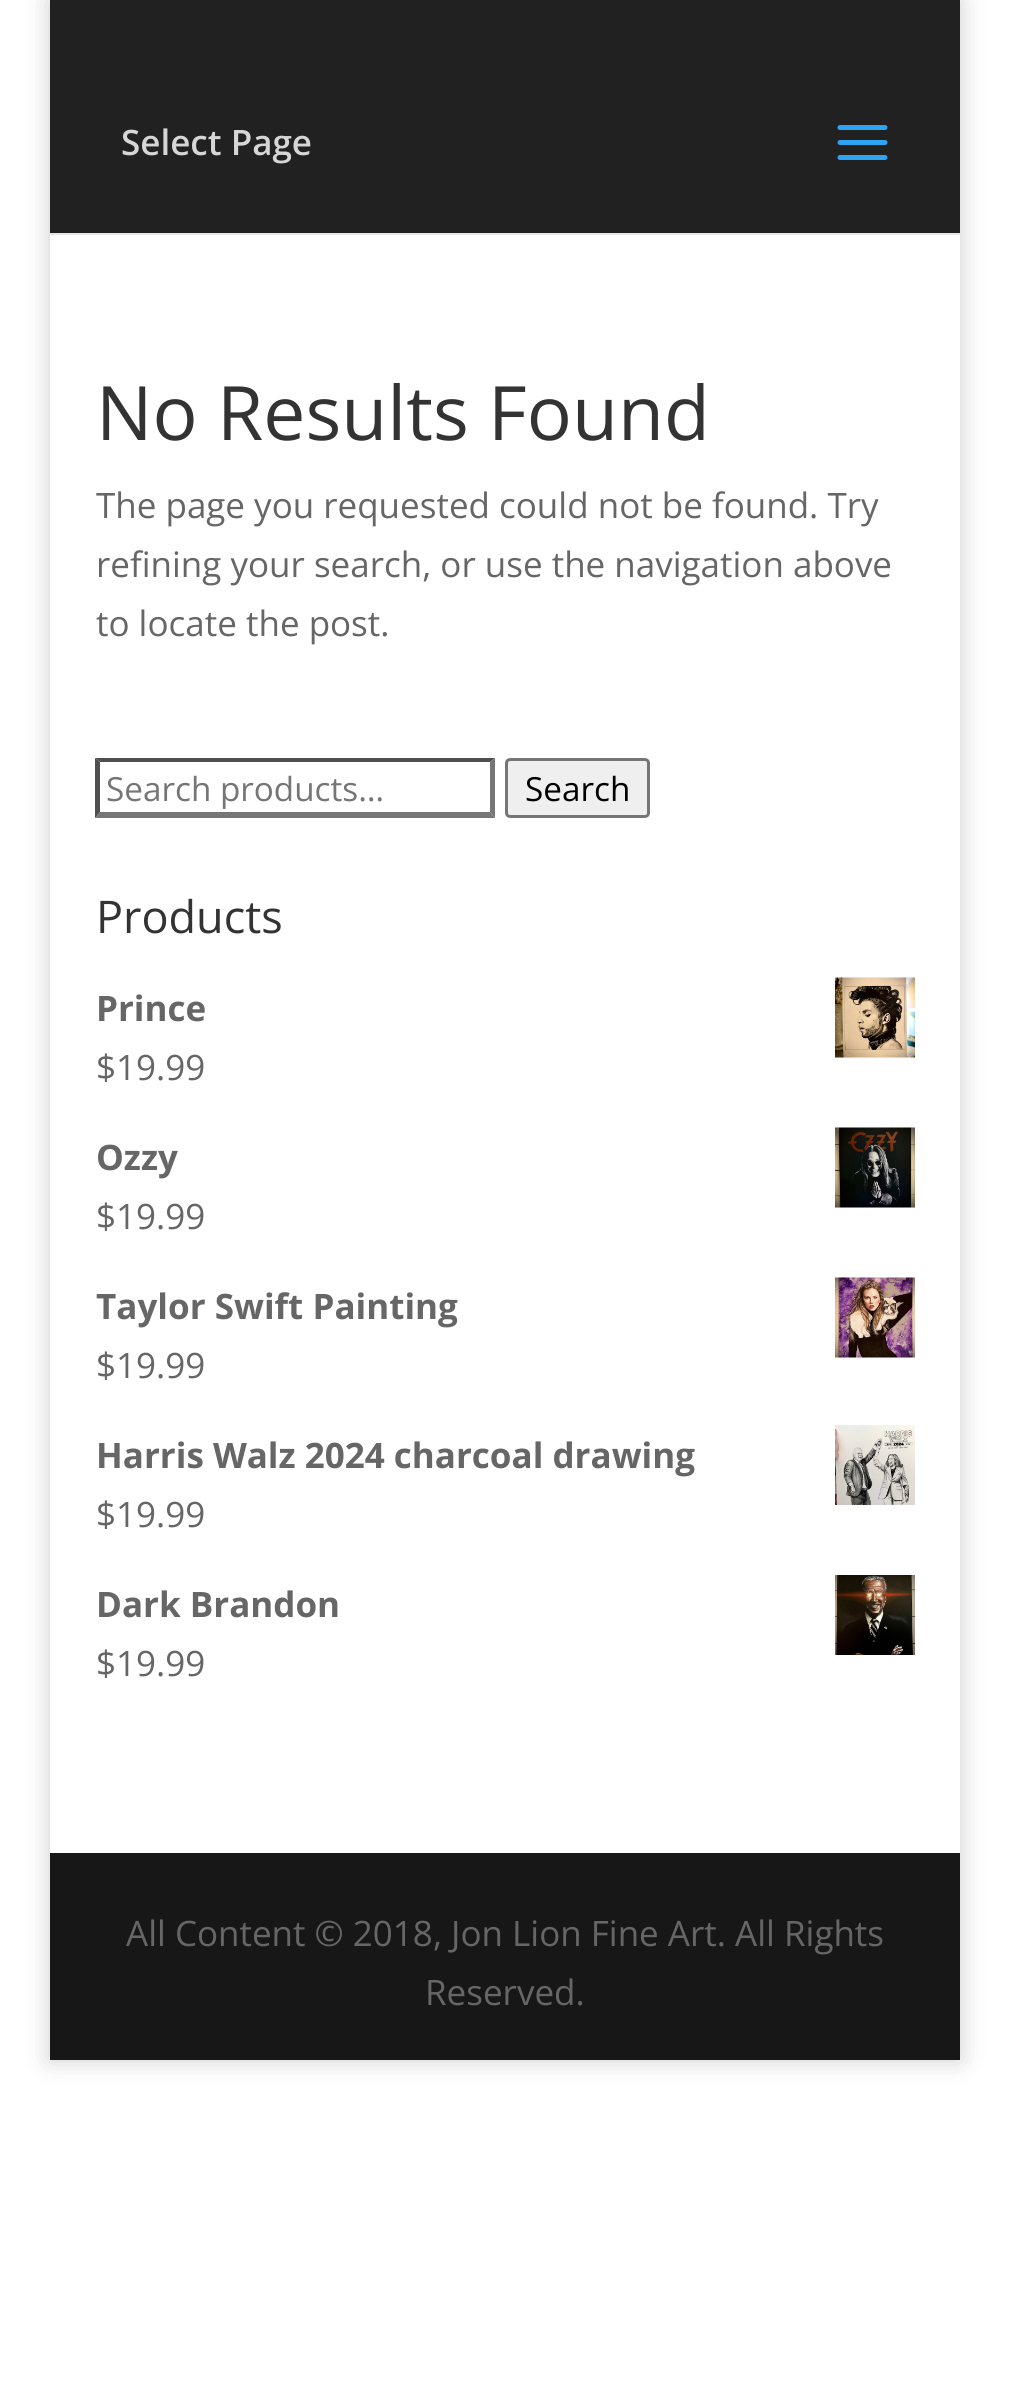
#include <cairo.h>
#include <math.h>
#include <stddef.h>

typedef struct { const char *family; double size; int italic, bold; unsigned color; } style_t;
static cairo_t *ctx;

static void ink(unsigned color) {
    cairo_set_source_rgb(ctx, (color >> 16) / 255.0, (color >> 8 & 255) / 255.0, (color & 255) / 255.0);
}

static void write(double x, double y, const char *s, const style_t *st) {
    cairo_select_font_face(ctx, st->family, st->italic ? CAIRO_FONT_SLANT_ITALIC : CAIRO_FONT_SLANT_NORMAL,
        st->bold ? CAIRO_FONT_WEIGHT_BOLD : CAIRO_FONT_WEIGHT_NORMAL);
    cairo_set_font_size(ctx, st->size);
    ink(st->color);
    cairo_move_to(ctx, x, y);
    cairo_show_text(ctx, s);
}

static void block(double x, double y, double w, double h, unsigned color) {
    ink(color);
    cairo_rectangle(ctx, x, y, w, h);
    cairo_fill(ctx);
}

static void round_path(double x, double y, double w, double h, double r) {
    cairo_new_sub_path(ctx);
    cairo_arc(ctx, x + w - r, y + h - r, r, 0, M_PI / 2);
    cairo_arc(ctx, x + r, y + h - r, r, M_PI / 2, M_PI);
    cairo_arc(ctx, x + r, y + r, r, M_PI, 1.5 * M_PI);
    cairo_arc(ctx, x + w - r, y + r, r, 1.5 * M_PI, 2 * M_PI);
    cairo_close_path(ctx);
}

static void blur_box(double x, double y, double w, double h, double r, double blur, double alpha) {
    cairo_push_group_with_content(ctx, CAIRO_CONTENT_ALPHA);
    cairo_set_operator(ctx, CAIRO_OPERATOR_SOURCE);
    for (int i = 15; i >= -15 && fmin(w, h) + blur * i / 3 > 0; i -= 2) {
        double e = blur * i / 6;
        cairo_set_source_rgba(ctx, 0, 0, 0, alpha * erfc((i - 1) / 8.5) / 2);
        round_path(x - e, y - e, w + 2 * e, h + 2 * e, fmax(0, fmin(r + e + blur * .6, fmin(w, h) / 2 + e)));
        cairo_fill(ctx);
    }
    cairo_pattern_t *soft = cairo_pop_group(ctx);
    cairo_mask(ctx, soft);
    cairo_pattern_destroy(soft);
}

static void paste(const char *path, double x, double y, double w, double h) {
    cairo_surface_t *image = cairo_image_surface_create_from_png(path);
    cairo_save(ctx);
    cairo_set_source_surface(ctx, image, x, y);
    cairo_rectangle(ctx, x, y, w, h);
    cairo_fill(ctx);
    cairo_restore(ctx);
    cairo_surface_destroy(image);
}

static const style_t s1 = {"Open Sans SemiBold", 35, 0, 0, 0xd6d6d6};
static const style_t s2 = {"Open Sans", 75, 0, 0, 0x333333};
static const style_t s3 = {"Open Sans", 35, 0, 0, 0x666666};
static const style_t s4 = {"Open Sans", 33.25, 0, 0, 0x757575};
static const style_t s5 = {"Open Sans", 33.25, 0, 0, 0x000000};
static const style_t s6 = {"Open Sans", 45, 0, 0, 0x333333};
static const style_t s7 = {"Open Sans", 35, 0, 1, 0x666666};

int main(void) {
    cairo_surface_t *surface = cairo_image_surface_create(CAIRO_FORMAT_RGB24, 1009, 2404);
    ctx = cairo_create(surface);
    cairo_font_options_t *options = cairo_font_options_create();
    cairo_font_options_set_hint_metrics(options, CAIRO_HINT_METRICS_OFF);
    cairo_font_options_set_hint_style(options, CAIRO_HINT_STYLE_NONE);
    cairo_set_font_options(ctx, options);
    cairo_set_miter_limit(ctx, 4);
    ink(0xffffff);
    cairo_paint(ctx);
    cairo_save(ctx);
    cairo_set_fill_rule(ctx, CAIRO_FILL_RULE_EVEN_ODD);
    cairo_new_path(ctx);
    cairo_move_to(ctx, 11, 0);
    cairo_line_to(ctx, 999, 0);
    cairo_line_to(ctx, 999, 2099);
    cairo_line_to(ctx, 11, 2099);
    cairo_close_path(ctx);
    cairo_move_to(ctx, 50, 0);
    cairo_line_to(ctx, 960, 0);
    cairo_line_to(ctx, 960, 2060);
    cairo_line_to(ctx, 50, 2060);
    cairo_close_path(ctx);
    cairo_clip(ctx);
    ink(0x000000);
    blur_box(50, 0, 910, 2060, 0, 12.5, 0.2);
    cairo_restore(ctx);
    block(50, 233, 910, 2, 0xe6e6e6);
    block(50, 0, 910, 233, 0x212121);
    write(121, 155, "Select Page", &s1);
    paste("pic1.png", 837, 125, 51, 35);
    write(96, 440, "No Results Found", &s2);
    write(96, 518, "The page you requested could not be found. Try", &s3);
    write(96, 577, "refining your search, or use the navigation above", &s3);
    write(96, 636, "to locate the post.", &s3);
    ink(0x4f4f4f);
    cairo_new_path(ctx);
    cairo_move_to(ctx, 95, 758);
    cairo_line_to(ctx, 495, 758);
    cairo_line_to(ctx, 490, 762);
    cairo_line_to(ctx, 100, 762);
    cairo_close_path(ctx);
    cairo_fill(ctx);
    ink(0x767676);
    cairo_new_path(ctx);
    cairo_move_to(ctx, 495, 758);
    cairo_line_to(ctx, 495, 818);
    cairo_line_to(ctx, 490, 812);
    cairo_line_to(ctx, 490, 762);
    cairo_close_path(ctx);
    cairo_fill(ctx);
    cairo_new_path(ctx);
    cairo_move_to(ctx, 495, 818);
    cairo_line_to(ctx, 95, 818);
    cairo_line_to(ctx, 100, 812);
    cairo_line_to(ctx, 490, 812);
    cairo_close_path(ctx);
    cairo_fill(ctx);
    ink(0x4f4f4f);
    cairo_new_path(ctx);
    cairo_move_to(ctx, 95, 818);
    cairo_line_to(ctx, 95, 758);
    cairo_line_to(ctx, 100, 762);
    cairo_line_to(ctx, 100, 812);
    cairo_close_path(ctx);
    cairo_fill(ctx);
    write(106, 801, "Search products…", &s4);
    ink(0xefefef);
    round_path(506.5, 759.5, 142, 57, 3.5);
    cairo_fill_preserve(ctx);
    ink(0x767676);
    cairo_set_line_width(ctx, 3);
    cairo_stroke(ctx);
    write(525, 801, "Search", &s5);
    write(96, 933, "Products", &s6);
    write(96, 1021, "Prince", &s7);
    paste("pic2.png", 835, 977, 80, 81);
    write(96, 1080, "$19.99", &s3);
    write(96, 1170, "Ozzy", &s7);
    paste("pic3.png", 835, 1127, 80, 81);
    write(96, 1229, "$19.99", &s3);
    write(96, 1319, "Taylor Swift Painting", &s7);
    paste("pic4.png", 835, 1277, 80, 81);
    write(96, 1378, "$19.99", &s3);
    write(96, 1468, "Harris Walz 2024 charcoal drawing", &s7);
    paste("pic5.png", 835, 1425, 80, 80);
    write(96, 1527, "$19.99", &s3);
    write(96, 1617, "Dark Brandon", &s7);
    paste("pic6.png", 835, 1575, 80, 80);
    write(96, 1676, "$19.99", &s3);
    block(50, 1853, 910, 207, 0x171717);
    write(126, 1946, "All Content © 2018, Jon Lion Fine Art. All Rights", &s3);
    write(425, 2005, "Reserved.", &s3);
    cairo_surface_write_to_png(surface, "screenshot.png");
    cairo_font_options_destroy(options);
    cairo_destroy(ctx);
    cairo_surface_destroy(surface);
    return 0;
}
